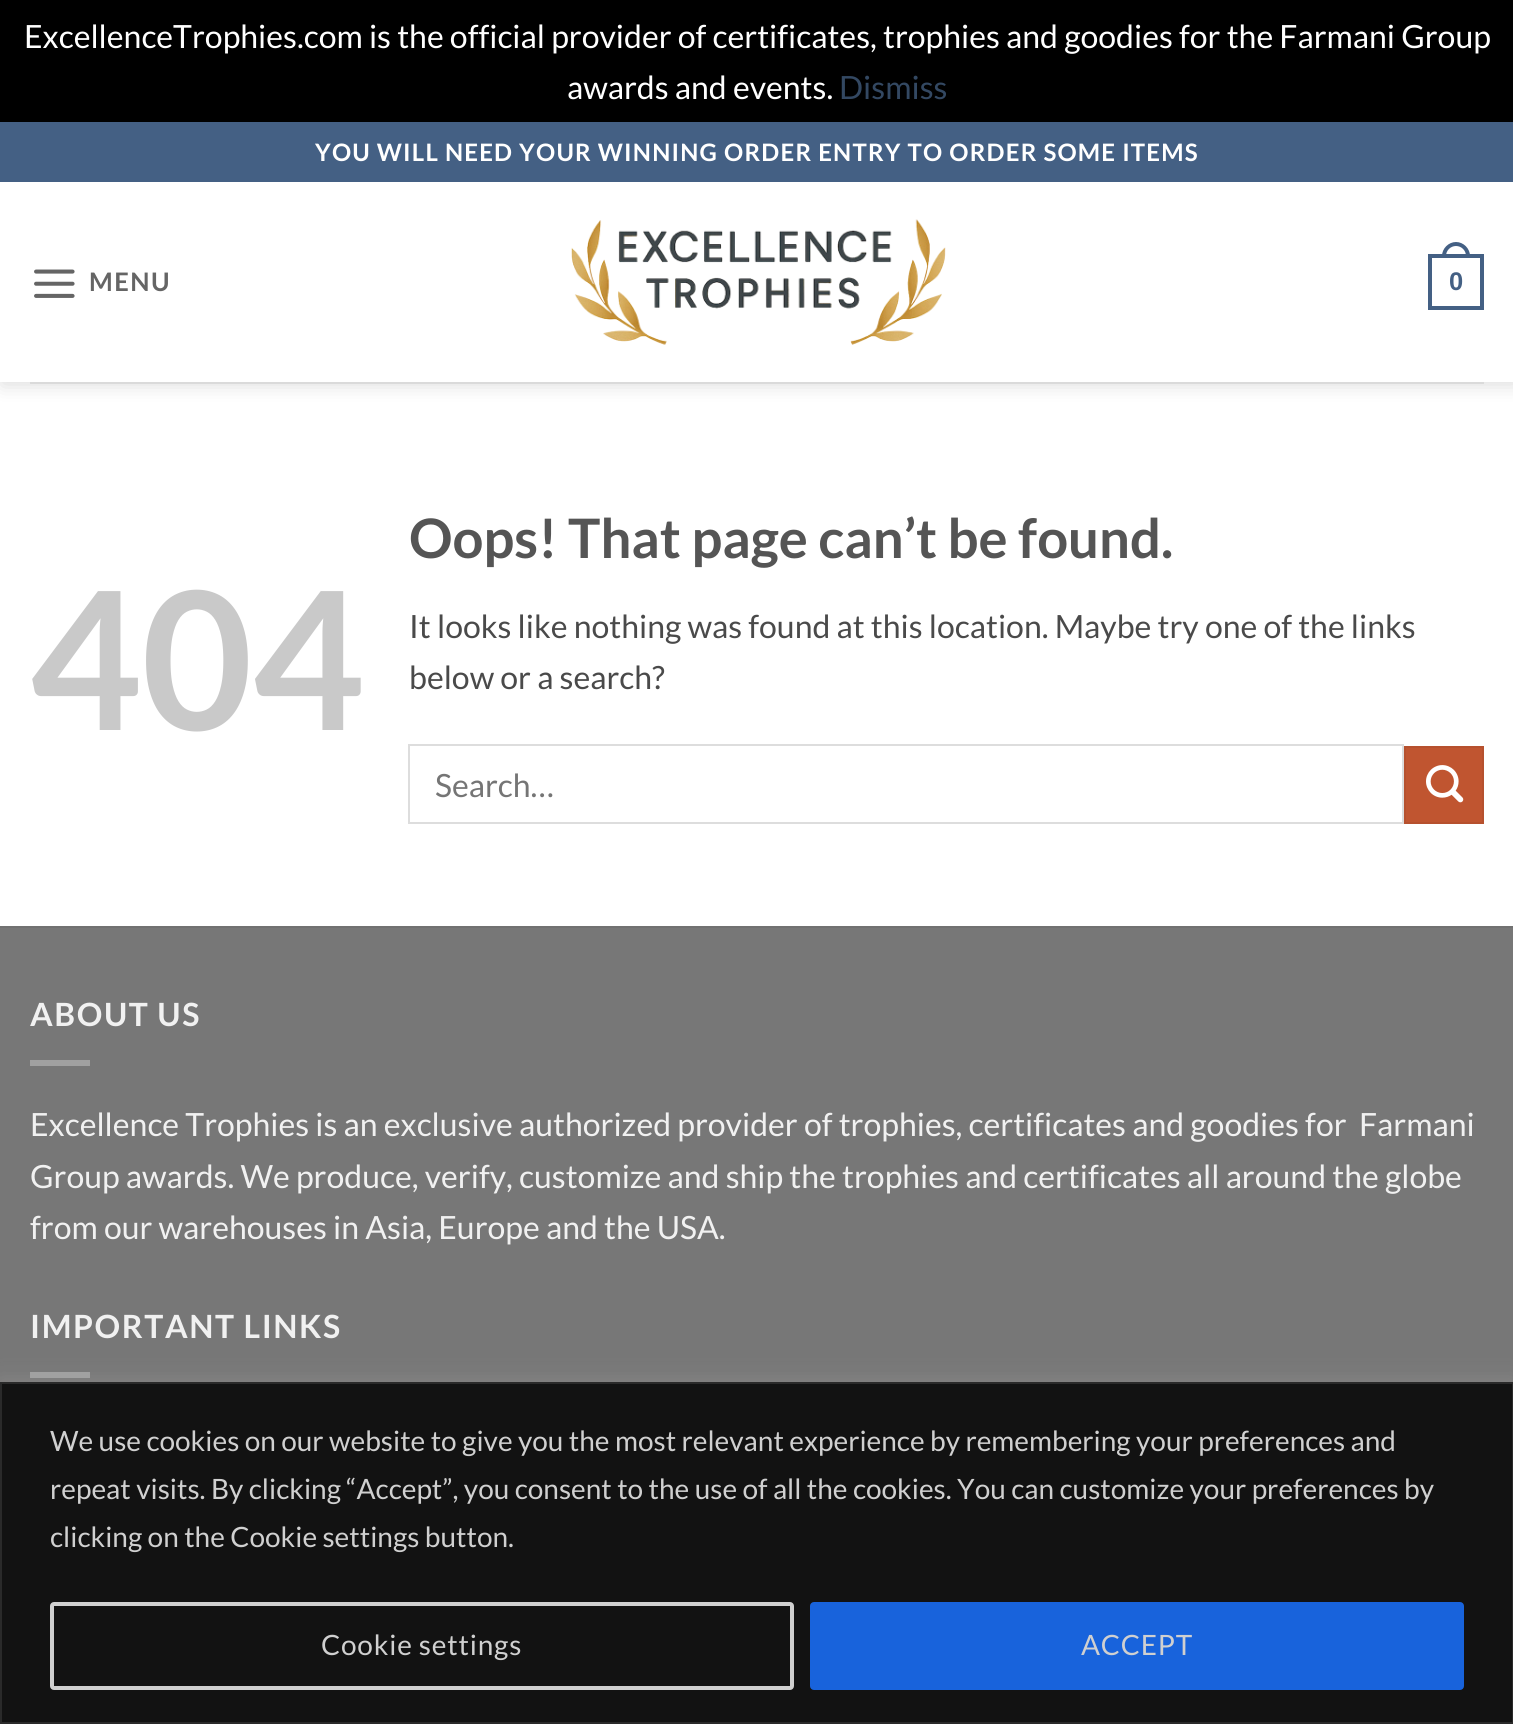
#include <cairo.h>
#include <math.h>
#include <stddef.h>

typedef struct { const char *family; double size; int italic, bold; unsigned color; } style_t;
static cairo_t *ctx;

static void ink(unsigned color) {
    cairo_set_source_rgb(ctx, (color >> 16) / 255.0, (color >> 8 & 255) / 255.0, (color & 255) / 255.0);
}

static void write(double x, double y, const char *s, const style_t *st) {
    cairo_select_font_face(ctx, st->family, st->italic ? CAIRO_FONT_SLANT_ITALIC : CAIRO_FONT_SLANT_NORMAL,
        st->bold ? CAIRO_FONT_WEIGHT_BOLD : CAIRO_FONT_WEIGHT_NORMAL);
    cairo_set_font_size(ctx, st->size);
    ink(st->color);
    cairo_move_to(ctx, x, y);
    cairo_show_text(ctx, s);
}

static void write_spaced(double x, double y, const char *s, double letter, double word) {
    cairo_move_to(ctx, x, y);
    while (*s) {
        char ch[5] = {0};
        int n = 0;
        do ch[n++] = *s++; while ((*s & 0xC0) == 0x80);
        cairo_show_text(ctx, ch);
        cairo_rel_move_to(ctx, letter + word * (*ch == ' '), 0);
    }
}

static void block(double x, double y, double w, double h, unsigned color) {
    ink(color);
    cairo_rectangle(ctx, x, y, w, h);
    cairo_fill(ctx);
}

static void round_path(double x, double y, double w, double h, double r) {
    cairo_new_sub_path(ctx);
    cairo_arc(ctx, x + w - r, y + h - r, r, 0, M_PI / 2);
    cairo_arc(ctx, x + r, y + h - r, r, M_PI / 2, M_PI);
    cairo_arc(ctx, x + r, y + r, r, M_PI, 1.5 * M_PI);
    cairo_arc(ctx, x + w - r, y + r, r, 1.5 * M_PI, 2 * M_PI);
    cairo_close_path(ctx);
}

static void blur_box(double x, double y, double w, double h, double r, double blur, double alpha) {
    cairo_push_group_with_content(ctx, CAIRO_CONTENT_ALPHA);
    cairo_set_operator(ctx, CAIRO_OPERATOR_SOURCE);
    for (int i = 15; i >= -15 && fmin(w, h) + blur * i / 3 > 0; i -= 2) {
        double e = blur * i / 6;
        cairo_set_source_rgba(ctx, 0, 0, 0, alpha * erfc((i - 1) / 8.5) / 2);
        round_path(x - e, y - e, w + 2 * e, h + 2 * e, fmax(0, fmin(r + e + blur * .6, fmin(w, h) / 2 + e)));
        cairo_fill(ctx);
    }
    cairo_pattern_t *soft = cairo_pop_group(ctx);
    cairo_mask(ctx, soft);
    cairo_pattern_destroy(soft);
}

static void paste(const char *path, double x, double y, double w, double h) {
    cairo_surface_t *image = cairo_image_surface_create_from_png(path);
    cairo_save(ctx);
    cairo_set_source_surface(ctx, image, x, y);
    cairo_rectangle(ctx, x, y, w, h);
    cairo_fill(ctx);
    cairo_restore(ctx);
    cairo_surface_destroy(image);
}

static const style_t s1 = {"Lato", 32, 0, 0, 0xffffff};
static const style_t s2 = {"Lato", 32, 0, 0, 0x334862};
static const style_t s3 = {"Liberation Sans", 25.5, 0, 1, 0x446084};
static const style_t s4 = {"Lato", 192, 0, 1, 0xc9c9c9};
static const style_t s5 = {"Lato", 54.4, 0, 1, 0x555555};
static const style_t s6 = {"Lato", 32, 0, 0, 0x4a4a4a};
static const style_t s7 = {"Lato", 32, 0, 0, 0x757575};
static const style_t s8 = {"Lato", 32, 0, 0, 0xf1f1f1};
static const style_t s9 = {"Lato", 28, 0, 0, 0xd0d0d0};

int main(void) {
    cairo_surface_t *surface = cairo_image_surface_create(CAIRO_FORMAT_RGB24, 1513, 1724);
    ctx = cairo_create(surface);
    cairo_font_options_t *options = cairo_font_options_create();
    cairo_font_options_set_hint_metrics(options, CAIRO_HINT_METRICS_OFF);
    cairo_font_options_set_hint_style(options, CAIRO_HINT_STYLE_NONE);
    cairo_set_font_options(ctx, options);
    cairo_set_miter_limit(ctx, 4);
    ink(0x000000);
    cairo_paint(ctx);
    write(24, 48, "ExcellenceTrophies.com is the official provider of certificates, trophies and goodies for the Farmani Group", &s1);
    write(567, 99, "awards and events.", &s1);
    write(839, 99, "Dismiss", &s2);
    block(0, 182, 1513, 744, 0xffffff);
    cairo_save(ctx);
    cairo_set_fill_rule(ctx, CAIRO_FILL_RULE_EVEN_ODD);
    cairo_new_path(ctx);
    cairo_move_to(ctx, 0, 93);
    cairo_line_to(ctx, 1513, 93);
    cairo_line_to(ctx, 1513, 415);
    cairo_line_to(ctx, 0, 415);
    cairo_close_path(ctx);
    cairo_move_to(ctx, 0, 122);
    cairo_line_to(ctx, 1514, 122);
    cairo_line_to(ctx, 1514, 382);
    cairo_line_to(ctx, 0, 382);
    cairo_close_path(ctx);
    cairo_clip(ctx);
    ink(0x000000);
    blur_box(2, 124, 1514, 260, 0, 10, 0.15);
    cairo_restore(ctx);
    block(0, 122, 1513, 60, 0x446084);
    cairo_select_font_face(ctx, "Lato", CAIRO_FONT_SLANT_NORMAL, CAIRO_FONT_WEIGHT_BOLD);
    cairo_set_font_size(ctx, 24);
    ink(0xffffff);
    write_spaced(315, 161, "YOU WILL NEED YOUR WINNING ORDER ENTRY TO ORDER SOME ITEMS", 1.2, 0);
    paste("pic1.png", 34, 269, 41, 29);
    cairo_set_font_size(ctx, 25.5);
    ink(0x656565);
    write_spaced(89, 291, "MENU", 1.5, 0);
    paste("pic2.png", 571, 219, 375, 126);
    cairo_rectangle(ctx, 1430, 256, 52, 52);
    ink(0x446084);
    cairo_set_line_width(ctx, 4);
    cairo_stroke(ctx);
    cairo_set_fill_rule(ctx, CAIRO_FILL_RULE_EVEN_ODD);
    cairo_new_path(ctx);
    cairo_move_to(ctx, 1456, 242);
    cairo_curve_to(ctx, 1463.5, 242, 1470, 248.5, 1470, 256);
    cairo_line_to(ctx, 1470, 258);
    cairo_line_to(ctx, 1442, 258);
    cairo_line_to(ctx, 1442, 256);
    cairo_curve_to(ctx, 1442, 248.5, 1448.5, 242, 1456, 242);
    cairo_close_path(ctx);
    cairo_move_to(ctx, 1456, 246);
    cairo_curve_to(ctx, 1461.5, 246, 1466, 250.5, 1466, 256);
    cairo_line_to(ctx, 1466, 258);
    cairo_line_to(ctx, 1446, 258);
    cairo_line_to(ctx, 1446, 256);
    cairo_curve_to(ctx, 1446, 250.5, 1450.5, 246, 1456, 246);
    cairo_close_path(ctx);
    cairo_fill(ctx);
    write(1449, 290, "0", &s3);
    block(30, 382, 1454, 2, 0xdadada);
    write(30, 730, "404", &s4);
    write(409, 558, "Oops! That page can’t be found.", &s5);
    write(409, 638, "It looks like nothing was found at this location. Maybe try one of the links", &s6);
    write(409, 689, "below or a search?", &s6);
    cairo_rectangle(ctx, 409, 745, 994, 78);
    ink(0xdddddd);
    cairo_set_line_width(ctx, 2);
    cairo_stroke(ctx);
    write(435, 797, "Search…", &s7);
    ink(0xc05530);
    cairo_rectangle(ctx, 1405, 747, 78, 76);
    cairo_fill_preserve(ctx);
    ink(0xb6512e);
    cairo_stroke(ctx);
    paste("pic3.png", 1426, 765, 38, 38);
    block(0, 928, 1513, 454, 0x777777);
    block(0, 926, 1513, 2, 0x717171);
    cairo_select_font_face(ctx, "Lato", CAIRO_FONT_SLANT_NORMAL, CAIRO_FONT_WEIGHT_BOLD);
    ink(0xf1f1f1);
    write_spaced(30, 1026, "ABOUT US", 1.6, 0);
    block(30, 1060, 60, 6, 0xa0a0a0);
    write(30, 1136, "Excellence Trophies is an exclusive authorized provider of trophies, certificates and goodies for", &s8);
    write(1359, 1136, "Farmani", &s8);
    write(30, 1188, "Group awards. We produce, verify, customize and ship the trophies and certificates all around the globe", &s8);
    write(30, 1239, "from our warehouses in Asia, Europe and the USA.", &s8);
    cairo_select_font_face(ctx, "Lato", CAIRO_FONT_SLANT_NORMAL, CAIRO_FONT_WEIGHT_BOLD);
    write_spaced(30, 1338, "IMPORTANT LINKS", 1.6, 0);
    block(30, 1372, 60, 6, 0xa0a0a0);
    ink(0xacabab);
    blur_box(0, 1380, 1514, 342, 0, 10, 0.3);
    ink(0x121212);
    cairo_rectangle(ctx, 1, 1383, 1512, 340);
    cairo_fill_preserve(ctx);
    ink(0x2a2a2a);
    cairo_stroke(ctx);
    write(50, 1451, "We use cookies on our website to give you the most relevant experience by remembering your preferences and", &s9);
    write(50, 1499, "repeat visits. By clicking “Accept”, you consent to the use of all the cookies. You can customize your preferences by", &s9);
    write(50, 1547, "clicking on the Cookie settings button.", &s9);
    round_path(52, 1604, 740, 84, 2);
    cairo_set_line_width(ctx, 4);
    cairo_stroke(ctx);
    write_spaced(321, 1655, "Cookie settings", 0.8, 0);
    ink(0x1863dc);
    round_path(812, 1604, 650, 84, 2);
    cairo_fill_preserve(ctx);
    cairo_stroke(ctx);
    ink(0xd0d0d0);
    write_spaced(1081, 1655, "ACCEPT", 0.8, 0);
    cairo_surface_write_to_png(surface, "screenshot.png");
    cairo_font_options_destroy(options);
    cairo_destroy(ctx);
    cairo_surface_destroy(surface);
    return 0;
}
